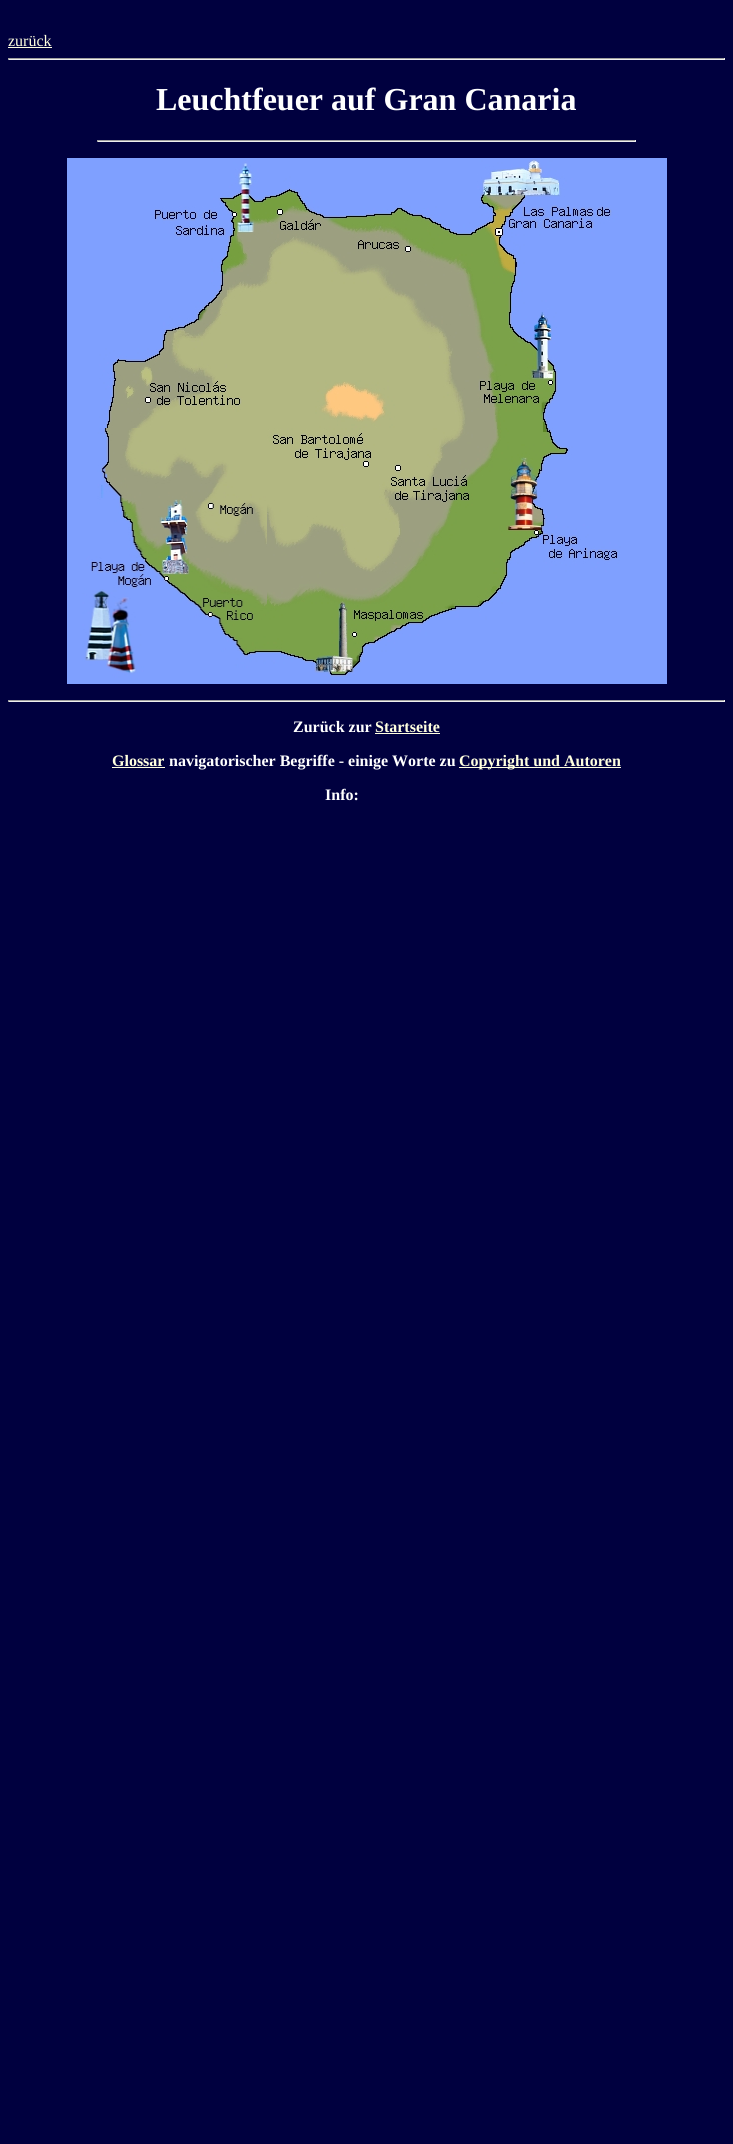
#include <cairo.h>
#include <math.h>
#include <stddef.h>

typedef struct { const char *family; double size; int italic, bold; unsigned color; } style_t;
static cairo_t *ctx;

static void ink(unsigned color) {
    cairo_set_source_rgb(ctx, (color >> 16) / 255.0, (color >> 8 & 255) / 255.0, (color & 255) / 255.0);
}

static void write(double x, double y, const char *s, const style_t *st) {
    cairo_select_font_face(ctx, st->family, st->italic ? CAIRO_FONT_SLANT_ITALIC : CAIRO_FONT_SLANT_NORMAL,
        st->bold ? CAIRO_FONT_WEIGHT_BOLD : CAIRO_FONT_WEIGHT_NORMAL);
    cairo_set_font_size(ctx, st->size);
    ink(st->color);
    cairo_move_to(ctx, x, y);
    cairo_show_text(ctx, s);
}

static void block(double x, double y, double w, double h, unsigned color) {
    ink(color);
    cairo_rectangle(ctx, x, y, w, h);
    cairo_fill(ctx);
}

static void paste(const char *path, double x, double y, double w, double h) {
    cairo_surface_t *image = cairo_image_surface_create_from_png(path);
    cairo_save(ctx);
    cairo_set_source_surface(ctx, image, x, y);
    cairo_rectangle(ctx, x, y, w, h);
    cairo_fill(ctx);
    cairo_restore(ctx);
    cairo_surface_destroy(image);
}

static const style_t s1 = {"Liberation Serif", 16, 0, 0, 0xffffdf};
static const style_t s2 = {"Liberation Serif", 32, 0, 1, 0xffffff};
static const style_t s3 = {"Liberation Serif", 16, 0, 1, 0xffffff};
static const style_t s4 = {"Liberation Serif", 16, 0, 1, 0xffffdf};

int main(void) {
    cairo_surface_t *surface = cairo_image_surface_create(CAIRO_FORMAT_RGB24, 733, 2144);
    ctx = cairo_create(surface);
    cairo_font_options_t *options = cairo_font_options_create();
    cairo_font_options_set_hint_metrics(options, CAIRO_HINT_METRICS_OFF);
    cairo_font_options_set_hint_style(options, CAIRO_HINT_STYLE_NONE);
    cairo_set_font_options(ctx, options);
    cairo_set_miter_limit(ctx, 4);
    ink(0x00003f);
    cairo_paint(ctx);
    write(8, 46, "zurück", &s1);
    block(8, 47, 44, 1, 0xffffdf);
    block(8, 58, 717, 1, 0x9f9f9f);
    block(724, 58, 1, 2, 0xeeeeee);
    block(8, 59, 717, 1, 0xeeeeee);
    block(8, 58, 1, 2, 0x9f9f9f);
    write(156, 110, "Leuchtfeuer auf Gran Canaria", &s2);
    block(97, 140, 539, 1, 0x9f9f9f);
    block(635, 140, 1, 2, 0xeeeeee);
    block(97, 141, 539, 1, 0xeeeeee);
    block(97, 140, 1, 2, 0x9f9f9f);
    paste("pic1.png", 67, 158, 200, 110);
    paste("pic2.png", 267, 158, 210, 110);
    paste("pic3.png", 477, 158, 190, 110);
    paste("pic4.png", 67, 268, 200, 160);
    paste("pic5.png", 267, 268, 210, 160);
    paste("pic6.png", 477, 268, 190, 160);
    paste("pic7.png", 67, 428, 200, 256);
    paste("pic8.png", 267, 428, 210, 256);
    paste("pic9.png", 477, 428, 190, 256);
    block(8, 700, 717, 1, 0x9f9f9f);
    block(724, 700, 1, 2, 0xeeeeee);
    block(8, 701, 717, 1, 0xeeeeee);
    block(8, 700, 1, 2, 0x9f9f9f);
    write(293, 732, "Zurück zur", &s3);
    write(375, 732, "Startseite", &s4);
    block(375, 733, 65, 1, 0xffffdf);
    write(112, 766, "Glossar", &s4);
    block(112, 767, 53, 1, 0xffffdf);
    write(169, 766, "navigatorischer Begriffe - einige Worte zu", &s3);
    block(459, 767, 162, 1, 0xffffdf);
    write(459, 766, "Copyright und Autoren", &s4);
    write(325, 800, "Info:", &s3);
    cairo_surface_write_to_png(surface, "screenshot.png");
    cairo_font_options_destroy(options);
    cairo_destroy(ctx);
    cairo_surface_destroy(surface);
    return 0;
}
